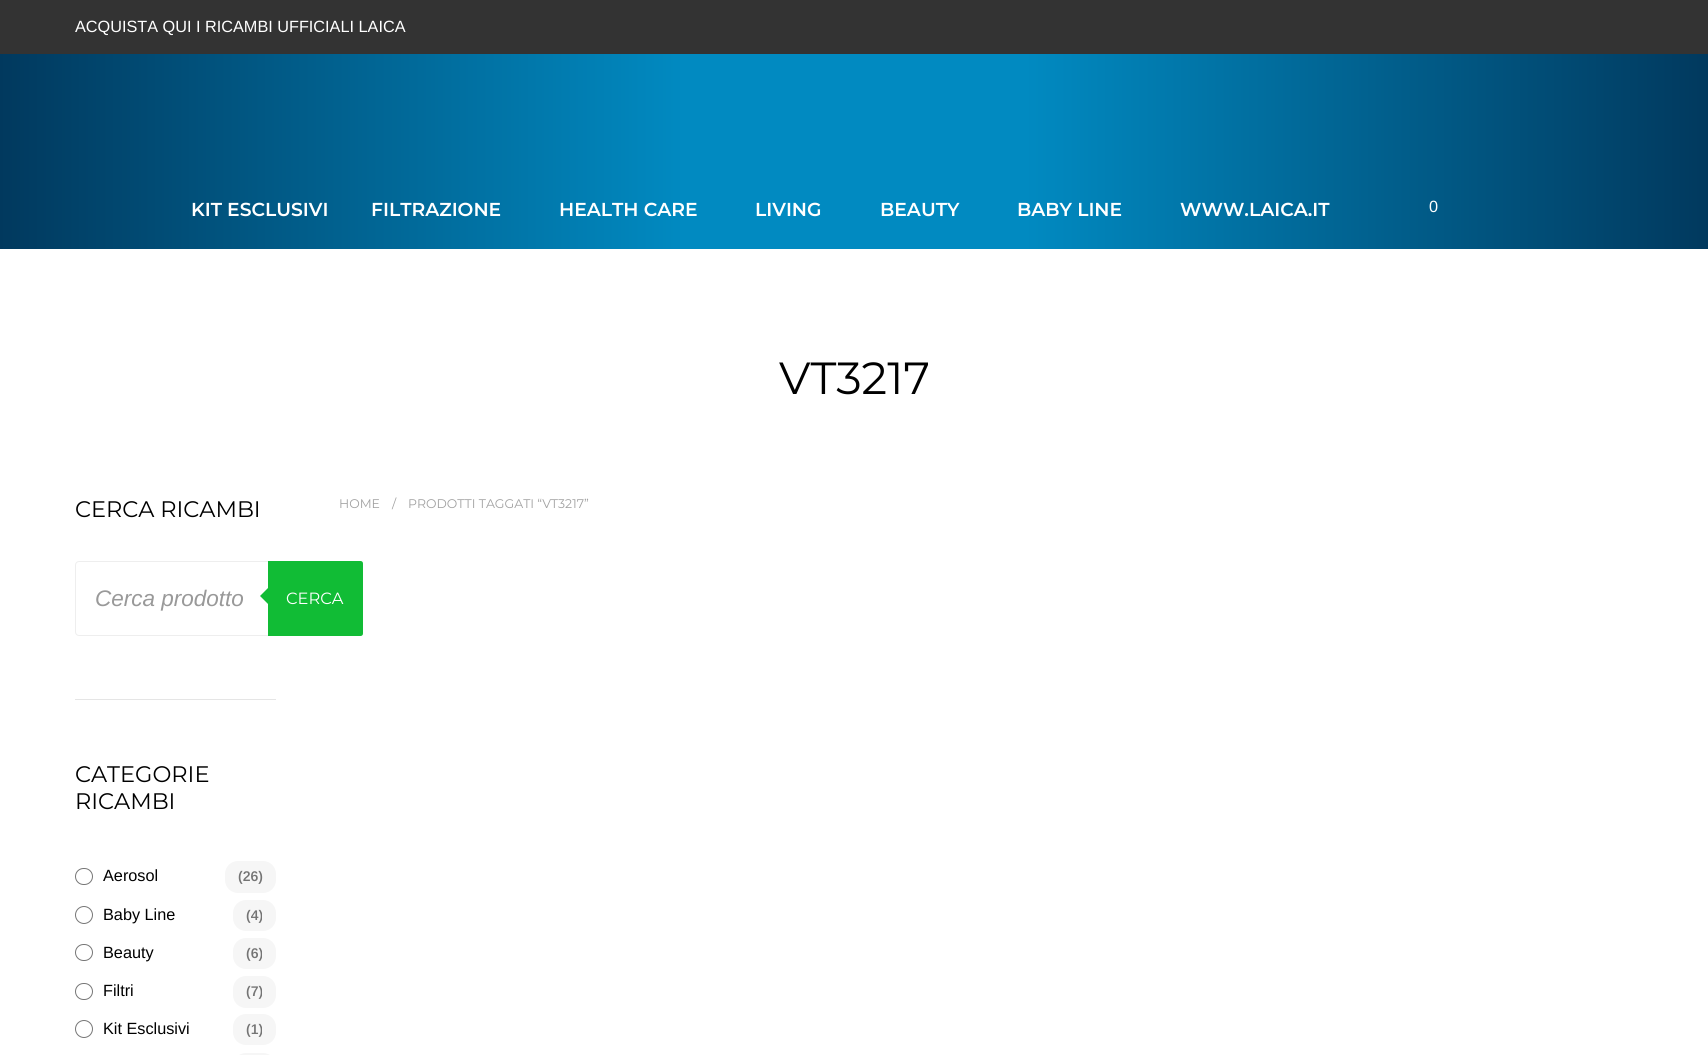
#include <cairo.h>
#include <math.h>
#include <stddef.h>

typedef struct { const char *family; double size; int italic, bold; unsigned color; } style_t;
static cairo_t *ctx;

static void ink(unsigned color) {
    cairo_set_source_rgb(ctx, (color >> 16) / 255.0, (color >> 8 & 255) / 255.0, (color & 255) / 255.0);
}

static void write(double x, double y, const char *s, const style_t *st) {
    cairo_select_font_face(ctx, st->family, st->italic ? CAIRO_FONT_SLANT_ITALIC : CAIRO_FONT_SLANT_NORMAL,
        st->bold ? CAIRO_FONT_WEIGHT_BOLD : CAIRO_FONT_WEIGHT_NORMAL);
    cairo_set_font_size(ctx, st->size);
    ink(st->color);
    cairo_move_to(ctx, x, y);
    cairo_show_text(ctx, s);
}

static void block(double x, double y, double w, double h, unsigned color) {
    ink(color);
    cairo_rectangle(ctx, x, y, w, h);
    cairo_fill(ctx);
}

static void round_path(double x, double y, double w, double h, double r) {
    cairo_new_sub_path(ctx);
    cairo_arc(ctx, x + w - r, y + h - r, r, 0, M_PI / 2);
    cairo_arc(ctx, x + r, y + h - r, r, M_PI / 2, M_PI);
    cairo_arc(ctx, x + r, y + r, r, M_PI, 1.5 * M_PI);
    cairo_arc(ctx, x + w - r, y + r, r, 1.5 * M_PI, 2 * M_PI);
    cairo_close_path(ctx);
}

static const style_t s1 = {"Arimo", 16.25, 0, 0, 0xffffff};
static const style_t s2 = {"Montserrat SemiBold", 18.75, 0, 0, 0xffffff};
static const style_t s3 = {"Montserrat", 45, 0, 0, 0x000000};
static const style_t s4 = {"Montserrat", 22.5, 0, 0, 0x000000};
static const style_t s5 = {"Arimo", 22.5, 1, 0, 0x999999};
static const style_t s6 = {"Montserrat", 16.25, 0, 0, 0xffffff};
static const style_t s7 = {"Arimo", 16.25, 0, 0, 0x000000};
static const style_t s8 = {"Arimo SemiBold", 14, 0, 0, 0x747474};
static const style_t s9 = {"Montserrat", 12.5, 0, 0, 0xa1a1a1};

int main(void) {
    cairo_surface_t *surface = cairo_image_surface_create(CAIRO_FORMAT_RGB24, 1708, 1055);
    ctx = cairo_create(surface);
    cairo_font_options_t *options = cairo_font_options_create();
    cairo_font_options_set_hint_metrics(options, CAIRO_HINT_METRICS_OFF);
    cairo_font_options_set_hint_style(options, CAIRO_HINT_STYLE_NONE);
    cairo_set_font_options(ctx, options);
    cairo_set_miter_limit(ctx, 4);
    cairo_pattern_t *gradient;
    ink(0xffffff);
    cairo_paint(ctx);
    block(0, 0, 1708, 54, 0x333333);
    write(75, 32, "ACQUISTA QUI I RICAMBI UFFICIALI LAICA", &s1);
    gradient = cairo_pattern_create_linear(0, 151, 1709, 151);
    cairo_pattern_add_color_stop_rgba(gradient, 0, 0.004, 0.224, 0.369, 1);
    cairo_pattern_add_color_stop_rgba(gradient, 0.4, 0.004, 0.541, 0.757, 1);
    cairo_pattern_add_color_stop_rgba(gradient, 0.6, 0.004, 0.541, 0.757, 1);
    cairo_pattern_add_color_stop_rgba(gradient, 1, 0.004, 0.224, 0.369, 1);
    cairo_set_source(ctx, gradient);
    cairo_pattern_destroy(gradient);
    cairo_rectangle(ctx, 0, 54, 1708, 195);
    cairo_fill(ctx);
    write(191, 216, "KIT ESCLUSIVI", &s2);
    write(371, 216, "FILTRAZIONE", &s2);
    write(559, 216, "HEALTH CARE", &s2);
    write(755, 216, "LIVING", &s2);
    write(880, 216, "BEAUTY", &s2);
    write(1017, 216, "BABY LINE", &s2);
    write(1180, 216, "WWW.LAICA.IT", &s2);
    write(1429, 212, "0", &s1);
    write(779, 394, "VT3217", &s3);
    block(75, 699, 201, 1, 0xe5e5e5);
    write(75, 517, "CERCA RICAMBI", &s4);
    round_path(75.5, 561.5, 287, 74, 3.5);
    ink(0xeeeeee);
    cairo_set_line_width(ctx, 1);
    cairo_stroke(ctx);
    write(95, 606, "Cerca prodotto", &s5);
    ink(0x11bc35);
    cairo_new_path(ctx);
    cairo_move_to(ctx, 268, 561);
    cairo_line_to(ctx, 360.5, 561);
    cairo_curve_to(ctx, 362, 561, 363, 562, 363, 563.5);
    cairo_line_to(ctx, 363, 633.5);
    cairo_curve_to(ctx, 363, 635, 362, 636, 360.5, 636);
    cairo_line_to(ctx, 268, 636);
    cairo_close_path(ctx);
    cairo_fill(ctx);
    cairo_new_path(ctx);
    cairo_move_to(ctx, 270, 586);
    cairo_line_to(ctx, 270, 606);
    cairo_line_to(ctx, 260, 596);
    cairo_close_path(ctx);
    cairo_fill(ctx);
    write(286, 604, "CERCA", &s6);
    write(75, 782, "CATEGORIE", &s4);
    write(75, 809, "RICAMBI", &s4);
    round_path(75.5, 868.5, 17, 16, 8);
    ink(0x767676);
    cairo_stroke(ctx);
    write(103, 881, "Aerosol", &s7);
    ink(0xf6f6f6);
    round_path(225, 861, 51, 32, 13);
    cairo_fill(ctx);
    write(238, 881, "(26)", &s8);
    cairo_new_path(ctx);
    cairo_arc(ctx, 84, 915, 8.5, 0, 2 * M_PI);
    ink(0x767676);
    cairo_stroke(ctx);
    write(103, 920, "Baby Line", &s7);
    ink(0xf6f6f6);
    round_path(233, 900, 43, 31, 13);
    cairo_fill(ctx);
    write(246, 920, "(4)", &s8);
    round_path(75.5, 944.5, 17, 16, 8);
    ink(0x767676);
    cairo_stroke(ctx);
    write(103, 958, "Beauty", &s7);
    ink(0xf6f6f6);
    round_path(233, 938, 43, 31, 13);
    cairo_fill(ctx);
    write(246, 958, "(6)", &s8);
    round_path(75.5, 983.5, 17, 16, 8);
    ink(0x767676);
    cairo_stroke(ctx);
    write(103, 996, "Filtri", &s7);
    ink(0xf6f6f6);
    round_path(233, 976, 43, 32, 13);
    cairo_fill(ctx);
    write(246, 996, "(7)", &s8);
    cairo_new_path(ctx);
    cairo_arc(ctx, 84, 1029, 8.5, 0, 2 * M_PI);
    ink(0x767676);
    cairo_stroke(ctx);
    write(103, 1034, "Kit Esclusivi", &s7);
    ink(0xf6f6f6);
    round_path(233, 1014, 43, 31, 13);
    cairo_fill(ctx);
    write(246, 1034, "(1)", &s8);
    ink(0xf6f6f6);
    round_path(233, 1053, 43, 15, 13);
    cairo_fill(ctx);
    write(339, 508, "HOME", &s9);
    write(392, 508, "/", &s9);
    write(408, 508, "PRODOTTI TAGGATI “VT3217”", &s9);
    cairo_surface_write_to_png(surface, "screenshot.png");
    cairo_font_options_destroy(options);
    cairo_destroy(ctx);
    cairo_surface_destroy(surface);
    return 0;
}
